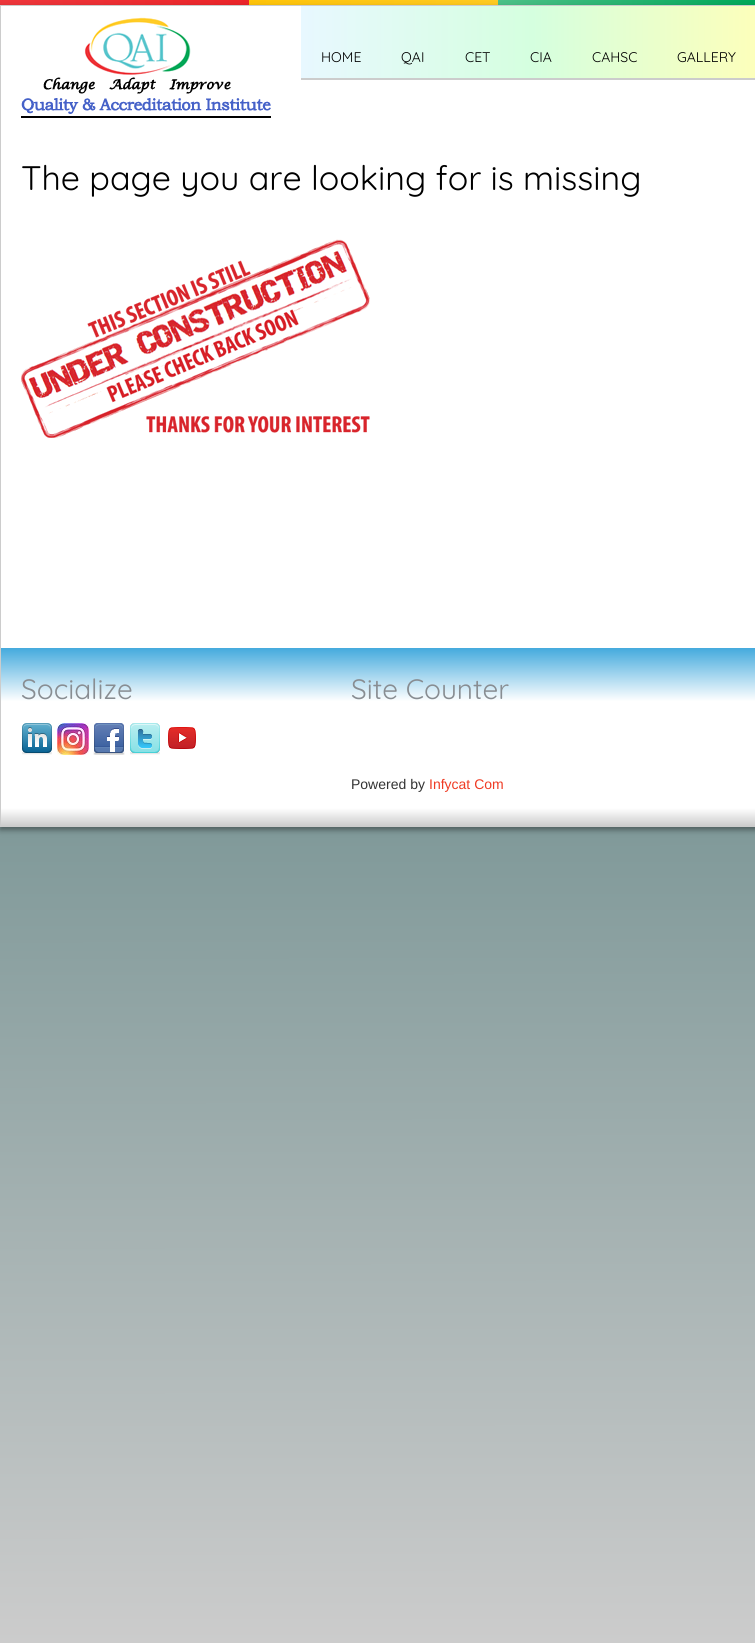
#include <cairo.h>
#include <math.h>
#include <stddef.h>

typedef struct { const char *family; double size; int italic, bold; unsigned color; } style_t;
static cairo_t *ctx;

static void ink(unsigned color) {
    cairo_set_source_rgb(ctx, (color >> 16) / 255.0, (color >> 8 & 255) / 255.0, (color & 255) / 255.0);
}

static void write(double x, double y, const char *s, const style_t *st) {
    cairo_select_font_face(ctx, st->family, st->italic ? CAIRO_FONT_SLANT_ITALIC : CAIRO_FONT_SLANT_NORMAL,
        st->bold ? CAIRO_FONT_WEIGHT_BOLD : CAIRO_FONT_WEIGHT_NORMAL);
    cairo_set_font_size(ctx, st->size);
    ink(st->color);
    cairo_move_to(ctx, x, y);
    cairo_show_text(ctx, s);
}

static void block(double x, double y, double w, double h, unsigned color) {
    ink(color);
    cairo_rectangle(ctx, x, y, w, h);
    cairo_fill(ctx);
}

static void round_path(double x, double y, double w, double h, double r) {
    cairo_new_sub_path(ctx);
    cairo_arc(ctx, x + w - r, y + h - r, r, 0, M_PI / 2);
    cairo_arc(ctx, x + r, y + h - r, r, M_PI / 2, M_PI);
    cairo_arc(ctx, x + r, y + r, r, M_PI, 1.5 * M_PI);
    cairo_arc(ctx, x + w - r, y + r, r, 1.5 * M_PI, 2 * M_PI);
    cairo_close_path(ctx);
}

static void blur_box(double x, double y, double w, double h, double r, double blur, double alpha) {
    cairo_push_group_with_content(ctx, CAIRO_CONTENT_ALPHA);
    cairo_set_operator(ctx, CAIRO_OPERATOR_SOURCE);
    for (int i = 15; i >= -15 && fmin(w, h) + blur * i / 3 > 0; i -= 2) {
        double e = blur * i / 6;
        cairo_set_source_rgba(ctx, 0, 0, 0, alpha * erfc((i - 1) / 8.5) / 2);
        round_path(x - e, y - e, w + 2 * e, h + 2 * e, fmax(0, fmin(r + e + blur * .6, fmin(w, h) / 2 + e)));
        cairo_fill(ctx);
    }
    cairo_pattern_t *soft = cairo_pop_group(ctx);
    cairo_mask(ctx, soft);
    cairo_pattern_destroy(soft);
}

static void paste(const char *path, double x, double y, double w, double h) {
    cairo_surface_t *image = cairo_image_surface_create_from_png(path);
    cairo_save(ctx);
    cairo_set_source_surface(ctx, image, x, y);
    cairo_rectangle(ctx, x, y, w, h);
    cairo_fill(ctx);
    cairo_restore(ctx);
    cairo_surface_destroy(image);
}

static const style_t s1 = {"Quicksand", 14, 0, 0, 0x000000};
static const style_t s2 = {"Quicksand", 34, 0, 0, 0x000000};
static const style_t s3 = {"Quicksand", 28, 0, 0, 0x888d92};
static const style_t s4 = {"Liberation Sans", 14, 0, 0, 0x333333};
static const style_t s5 = {"Liberation Sans", 14, 0, 0, 0xef3b24};

int main(void) {
    cairo_surface_t *surface = cairo_image_surface_create(CAIRO_FORMAT_RGB24, 755, 1643);
    ctx = cairo_create(surface);
    cairo_font_options_t *options = cairo_font_options_create();
    cairo_font_options_set_hint_metrics(options, CAIRO_HINT_METRICS_OFF);
    cairo_font_options_set_hint_style(options, CAIRO_HINT_STYLE_NONE);
    cairo_set_font_options(ctx, options);
    cairo_set_miter_limit(ctx, 4);
    cairo_pattern_t *gradient;
    ink(0xffffff);
    cairo_paint(ctx);
    gradient = cairo_pattern_create_linear(377, 0, 378, 1643);
    cairo_pattern_add_color_stop_rgba(gradient, 0, 0.2, 0.4, 0.4, 1);
    cairo_pattern_add_color_stop_rgba(gradient, 1, 0.8, 0.8, 0.8, 1);
    cairo_set_source(ctx, gradient);
    cairo_pattern_destroy(gradient);
    cairo_rectangle(ctx, 0, 827, 755, 816);
    cairo_fill(ctx);
    gradient = cairo_pattern_create_linear(0, 2.5, 755, 2.5);
    cairo_pattern_add_color_stop_rgba(gradient, 0, 0.933, 0.212, 0.231, 1);
    cairo_pattern_add_color_stop_rgba(gradient, 0.33, 0.925, 0.141, 0.161, 1);
    cairo_pattern_add_color_stop_rgba(gradient, 0.33, 1, 0.769, 0.035, 1);
    cairo_pattern_add_color_stop_rgba(gradient, 0.66, 1, 0.792, 0.129, 1);
    cairo_pattern_add_color_stop_rgba(gradient, 0.66, 0.302, 0.753, 0.533, 1);
    cairo_pattern_add_color_stop_rgba(gradient, 1, 0, 0.659, 0.349, 1);
    cairo_set_source(ctx, gradient);
    cairo_pattern_destroy(gradient);
    cairo_rectangle(ctx, 0, 0, 755, 5);
    cairo_fill(ctx);
    ink(0x000000);
    blur_box(0, 8, 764, 822, 0, 3, 0.4);
    block(1, 6, 754, 642, 0xffffff);
    cairo_rectangle(ctx, 0.5, 5.5, 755, 821);
    ink(0xcccccc);
    cairo_set_line_width(ctx, 1);
    cairo_stroke(ctx);
    paste("pic1.png", 21, 17, 250, 101);
    gradient = cairo_pattern_create_linear(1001, 42, 301, 42);
    cairo_pattern_add_color_stop_rgba(gradient, 0, 1, 0.882, 0.882, 1);
    cairo_pattern_add_color_stop_rgba(gradient, 0.33, 1, 1, 0.725, 1);
    cairo_pattern_add_color_stop_rgba(gradient, 0.67, 0.835, 1, 0.875, 1);
    cairo_pattern_add_color_stop_rgba(gradient, 1, 0.91, 0.973, 1, 1);
    cairo_set_source(ctx, gradient);
    cairo_pattern_destroy(gradient);
    cairo_rectangle(ctx, 301, 6, 454, 72);
    cairo_fill(ctx);
    block(301, 78, 454, 2, 0xcccccc);
    write(321, 62, "HOME", &s1);
    write(401, 62, "QAI", &s1);
    write(465, 62, "CET", &s1);
    write(530, 62, "CIA", &s1);
    write(592, 62, "CAHSC", &s1);
    write(677, 62, "GALLERY", &s1);
    write(21, 190, "The page you are looking for is missing", &s2);
    paste("pic2.png", 21, 239, 349, 199);
    gradient = cairo_pattern_create_linear(501, 648, 501, 826);
    cairo_pattern_add_color_stop_rgba(gradient, 0, 0.267, 0.667, 0.867, 1);
    cairo_pattern_add_color_stop_rgba(gradient, 0.3, 1, 1, 1, 1);
    cairo_pattern_add_color_stop_rgba(gradient, 0.9, 1, 1, 1, 1);
    cairo_pattern_add_color_stop_rgba(gradient, 1, 0.8, 0.8, 0.8, 1);
    cairo_set_source(ctx, gradient);
    cairo_pattern_destroy(gradient);
    cairo_rectangle(ctx, 1, 648, 754, 178);
    cairo_fill(ctx);
    write(21, 699, "Socialize", &s3);
    paste("pic3.png", 22, 723, 30, 32);
    paste("pic4.png", 57, 723, 32, 32);
    paste("pic5.png", 93, 723, 32, 32);
    paste("pic6.png", 130, 723, 30, 32);
    paste("pic7.png", 168, 727, 28, 22);
    write(351, 699, "Site Counter", &s3);
    write(351, 789, "Powered by", &s4);
    write(429, 789, "Infycat Com", &s5);
    cairo_surface_write_to_png(surface, "screenshot.png");
    cairo_font_options_destroy(options);
    cairo_destroy(ctx);
    cairo_surface_destroy(surface);
    return 0;
}
